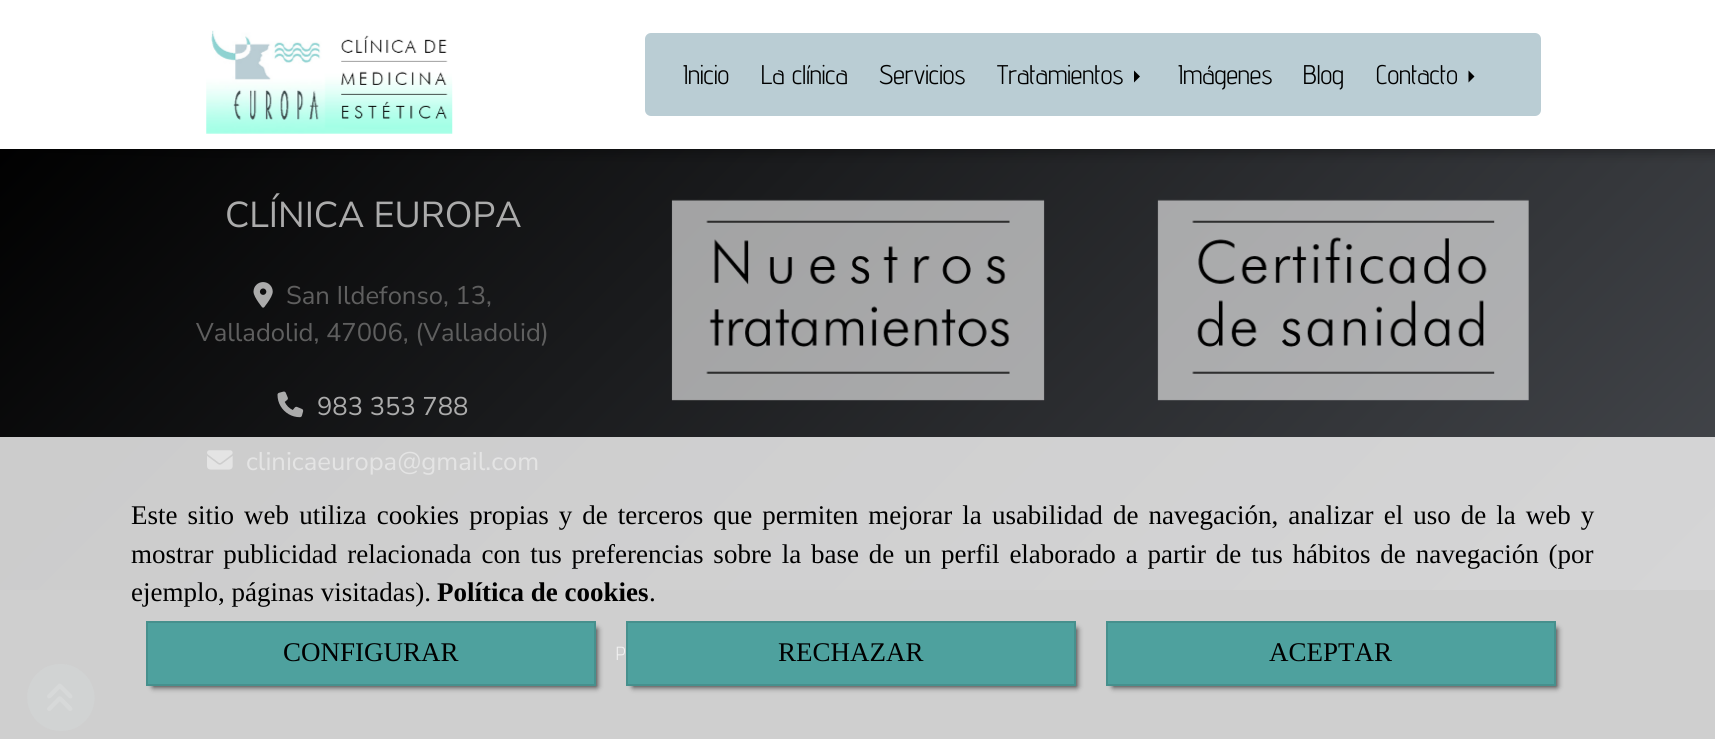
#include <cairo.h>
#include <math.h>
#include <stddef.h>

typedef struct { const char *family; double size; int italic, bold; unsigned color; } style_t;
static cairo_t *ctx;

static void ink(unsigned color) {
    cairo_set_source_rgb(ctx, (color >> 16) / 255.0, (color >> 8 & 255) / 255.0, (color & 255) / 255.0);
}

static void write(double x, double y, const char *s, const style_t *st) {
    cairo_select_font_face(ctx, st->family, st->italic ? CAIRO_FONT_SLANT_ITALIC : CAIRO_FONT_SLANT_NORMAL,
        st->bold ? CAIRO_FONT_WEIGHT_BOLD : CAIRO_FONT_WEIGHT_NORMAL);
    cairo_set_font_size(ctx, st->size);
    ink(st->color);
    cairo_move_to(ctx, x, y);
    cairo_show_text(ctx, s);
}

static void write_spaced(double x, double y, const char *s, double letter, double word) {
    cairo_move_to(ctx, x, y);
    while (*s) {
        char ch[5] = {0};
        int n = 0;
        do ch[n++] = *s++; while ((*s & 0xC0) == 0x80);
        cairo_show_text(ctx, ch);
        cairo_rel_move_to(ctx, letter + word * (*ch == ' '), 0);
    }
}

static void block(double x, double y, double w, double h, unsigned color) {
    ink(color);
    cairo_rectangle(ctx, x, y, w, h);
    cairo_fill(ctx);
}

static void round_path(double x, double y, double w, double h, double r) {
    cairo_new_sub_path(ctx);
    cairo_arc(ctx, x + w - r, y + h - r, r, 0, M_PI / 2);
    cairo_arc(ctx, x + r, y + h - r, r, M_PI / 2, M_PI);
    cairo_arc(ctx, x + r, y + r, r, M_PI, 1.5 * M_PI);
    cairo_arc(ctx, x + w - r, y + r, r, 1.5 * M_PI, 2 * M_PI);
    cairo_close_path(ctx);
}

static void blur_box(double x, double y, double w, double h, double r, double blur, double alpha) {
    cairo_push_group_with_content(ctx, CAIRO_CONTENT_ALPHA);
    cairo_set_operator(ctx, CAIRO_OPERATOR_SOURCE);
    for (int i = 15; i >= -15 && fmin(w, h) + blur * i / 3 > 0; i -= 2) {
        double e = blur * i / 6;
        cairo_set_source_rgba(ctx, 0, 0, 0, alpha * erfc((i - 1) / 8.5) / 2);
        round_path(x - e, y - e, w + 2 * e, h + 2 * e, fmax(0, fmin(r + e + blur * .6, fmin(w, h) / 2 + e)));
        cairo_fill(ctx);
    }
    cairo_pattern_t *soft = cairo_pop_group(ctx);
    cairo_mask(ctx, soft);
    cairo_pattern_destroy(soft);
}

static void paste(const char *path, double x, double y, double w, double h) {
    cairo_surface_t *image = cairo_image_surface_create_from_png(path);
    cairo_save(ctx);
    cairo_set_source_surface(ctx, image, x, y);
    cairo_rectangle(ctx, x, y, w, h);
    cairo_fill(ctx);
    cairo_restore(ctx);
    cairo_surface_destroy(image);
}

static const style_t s1 = {"Advent Pro", 27, 0, 0, 0x000000};
static const style_t s2 = {"Nunito Sans ExtraLight", 36, 0, 0, 0xababab};
static const style_t s3 = {"Nunito Sans ExtraLight", 25.6, 0, 0, 0x5f5f5f};
static const style_t s4 = {"Nunito Sans ExtraLight", 25.6, 0, 0, 0xababab};
static const style_t s5 = {"Nunito Sans ExtraLight", 25.6, 0, 0, 0xe4e4e4};
static const style_t s6 = {"Liberation Serif", 27, 0, 0, 0x000000};
static const style_t s7 = {"Liberation Serif", 27, 0, 1, 0x000000};
static const style_t s8 = {"Advent Pro", 19, 0, 0, 0xf1f1f1};

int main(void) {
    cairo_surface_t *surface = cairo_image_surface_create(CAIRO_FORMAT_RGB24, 1715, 739);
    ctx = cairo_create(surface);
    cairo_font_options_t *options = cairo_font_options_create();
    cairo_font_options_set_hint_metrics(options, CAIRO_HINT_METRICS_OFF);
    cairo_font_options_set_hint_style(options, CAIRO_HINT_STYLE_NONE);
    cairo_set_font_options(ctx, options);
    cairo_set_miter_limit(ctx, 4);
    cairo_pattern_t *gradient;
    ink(0xffffff);
    cairo_paint(ctx);
    gradient = cairo_pattern_create_linear(312, -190, 1404, 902);
    cairo_pattern_add_color_stop_rgba(gradient, 0, 0, 0, 0, 1);
    cairo_pattern_add_color_stop_rgba(gradient, 1, 0.271, 0.282, 0.302, 1);
    cairo_set_source(ctx, gradient);
    cairo_pattern_destroy(gradient);
    cairo_rectangle(ctx, 0, 149, 1715, 288);
    cairo_fill(ctx);
    ink(0x000000);
    blur_box(0, 0, 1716, 149, 0, 7.5, 0.5);
    block(0, 0, 1715, 149, 0xffffff);
    paste("pic1.png", 206, 30, 247, 104);
    ink(0xbacdd4);
    round_path(645, 33, 896, 83, 6);
    cairo_fill(ctx);
    write(683, 84, "Inicio", &s1);
    write(761, 84, "La clínica", &s1);
    write(879, 84, "Servicios", &s1);
    write(997, 84, "Tratamientos", &s1);
    cairo_new_path(ctx);
    cairo_move_to(ctx, 1134, 82.5);
    cairo_line_to(ctx, 1134, 70.5);
    cairo_line_to(ctx, 1140, 76.5);
    cairo_close_path(ctx);
    cairo_fill(ctx);
    write(1178, 84, "Imágenes", &s1);
    write(1303, 84, "Blog", &s1);
    write(1376, 84, "Contacto", &s1);
    cairo_new_path(ctx);
    cairo_move_to(ctx, 1468.5, 82.5);
    cairo_line_to(ctx, 1468.5, 70.5);
    cairo_line_to(ctx, 1474.5, 76.5);
    cairo_close_path(ctx);
    cairo_fill(ctx);
    gradient = cairo_pattern_create_linear(312, -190, 1404, 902);
    cairo_pattern_add_color_stop_rgba(gradient, 0, 0.792, 0.792, 0.792, 1);
    cairo_pattern_add_color_stop_rgba(gradient, 1, 0.835, 0.835, 0.839, 1);
    cairo_set_source(ctx, gradient);
    cairo_pattern_destroy(gradient);
    cairo_rectangle(ctx, 0, 437, 1715, 153);
    cairo_fill(ctx);
    write(225, 227, "CLÍNICA EUROPA", &s2);
    paste("pic2.png", 253, 282, 20, 26);
    write(286, 304, "San Ildefonso, 13,", &s3);
    write(196, 341, "Valladolid, 47006, (Valladolid)", &s3);
    paste("pic3.png", 277, 391, 27, 27);
    write(317, 415, "983 353 788", &s4);
    paste("pic4.png", 207, 450, 26, 20);
    write(246, 470, "clinicaeuropa@gmail.com", &s5);
    paste("pic5.png", 671, 199, 374, 202);
    paste("pic6.png", 1157, 199, 372, 202);
    cairo_select_font_face(ctx, "Liberation Serif", CAIRO_FONT_SLANT_NORMAL, CAIRO_FONT_WEIGHT_NORMAL);
    cairo_set_font_size(ctx, 27);
    ink(0x000000);
    write_spaced(131, 524, "Este sitio web utiliza cookies propias y de terceros que permiten mejorar la usabilidad de navegación, analizar el uso de la web y", 0, 3.3);
    write_spaced(131, 563, "mostrar publicidad relacionada con tus preferencias sobre la base de un perfil elaborado a partir de tus hábitos de navegación (por", 0, 3.1);
    block(0, 590, 1715, 149, 0xcfcfcf);
    write(131, 601, "ejemplo, páginas visitadas).", &s6);
    write(437, 601, "Política de cookies", &s7);
    write(649, 601, ".", &s6);
    ink(0x000000);
    blur_box(153, 629, 444, 58, 0, 3, 0.75);
    ink(0x4ea19e);
    cairo_rectangle(ctx, 147, 622, 448, 63);
    cairo_fill_preserve(ctx);
    ink(0x46908d);
    cairo_stroke(ctx);
    write(283, 661, "CONFIGURAR", &s6);
    ink(0x000000);
    blur_box(633, 629, 444, 58, 0, 3, 0.75);
    ink(0x4ea19e);
    cairo_rectangle(ctx, 627, 622, 448, 63);
    cairo_fill_preserve(ctx);
    ink(0x46908d);
    cairo_stroke(ctx);
    write(778, 661, "RECHAZAR", &s6);
    ink(0x000000);
    blur_box(1113, 629, 444, 58, 0, 3, 0.75);
    ink(0x4ea19e);
    cairo_rectangle(ctx, 1107, 622, 448, 63);
    cairo_fill_preserve(ctx);
    ink(0x46908d);
    cairo_stroke(ctx);
    write(1269, 661, "ACEPTAR", &s6);
    write(616, 660, "P", &s8);
    ink(0xd1d3d3);
    cairo_new_path(ctx);
    cairo_move_to(ctx, 61, 731);
    cairo_curve_to(ctx, 93, 731, 107, 691, 81, 671);
    cairo_curve_to(ctx, 75, 666, 68, 664, 61, 664);
    cairo_curve_to(ctx, 53, 664, 46, 666, 40, 671);
    cairo_curve_to(ctx, 15, 691, 29, 731, 61, 731);
    cairo_close_path(ctx);
    cairo_fill(ctx);
    paste("pic7.png", 47, 683, 26, 28);
    cairo_surface_write_to_png(surface, "screenshot.png");
    cairo_font_options_destroy(options);
    cairo_destroy(ctx);
    cairo_surface_destroy(surface);
    return 0;
}
